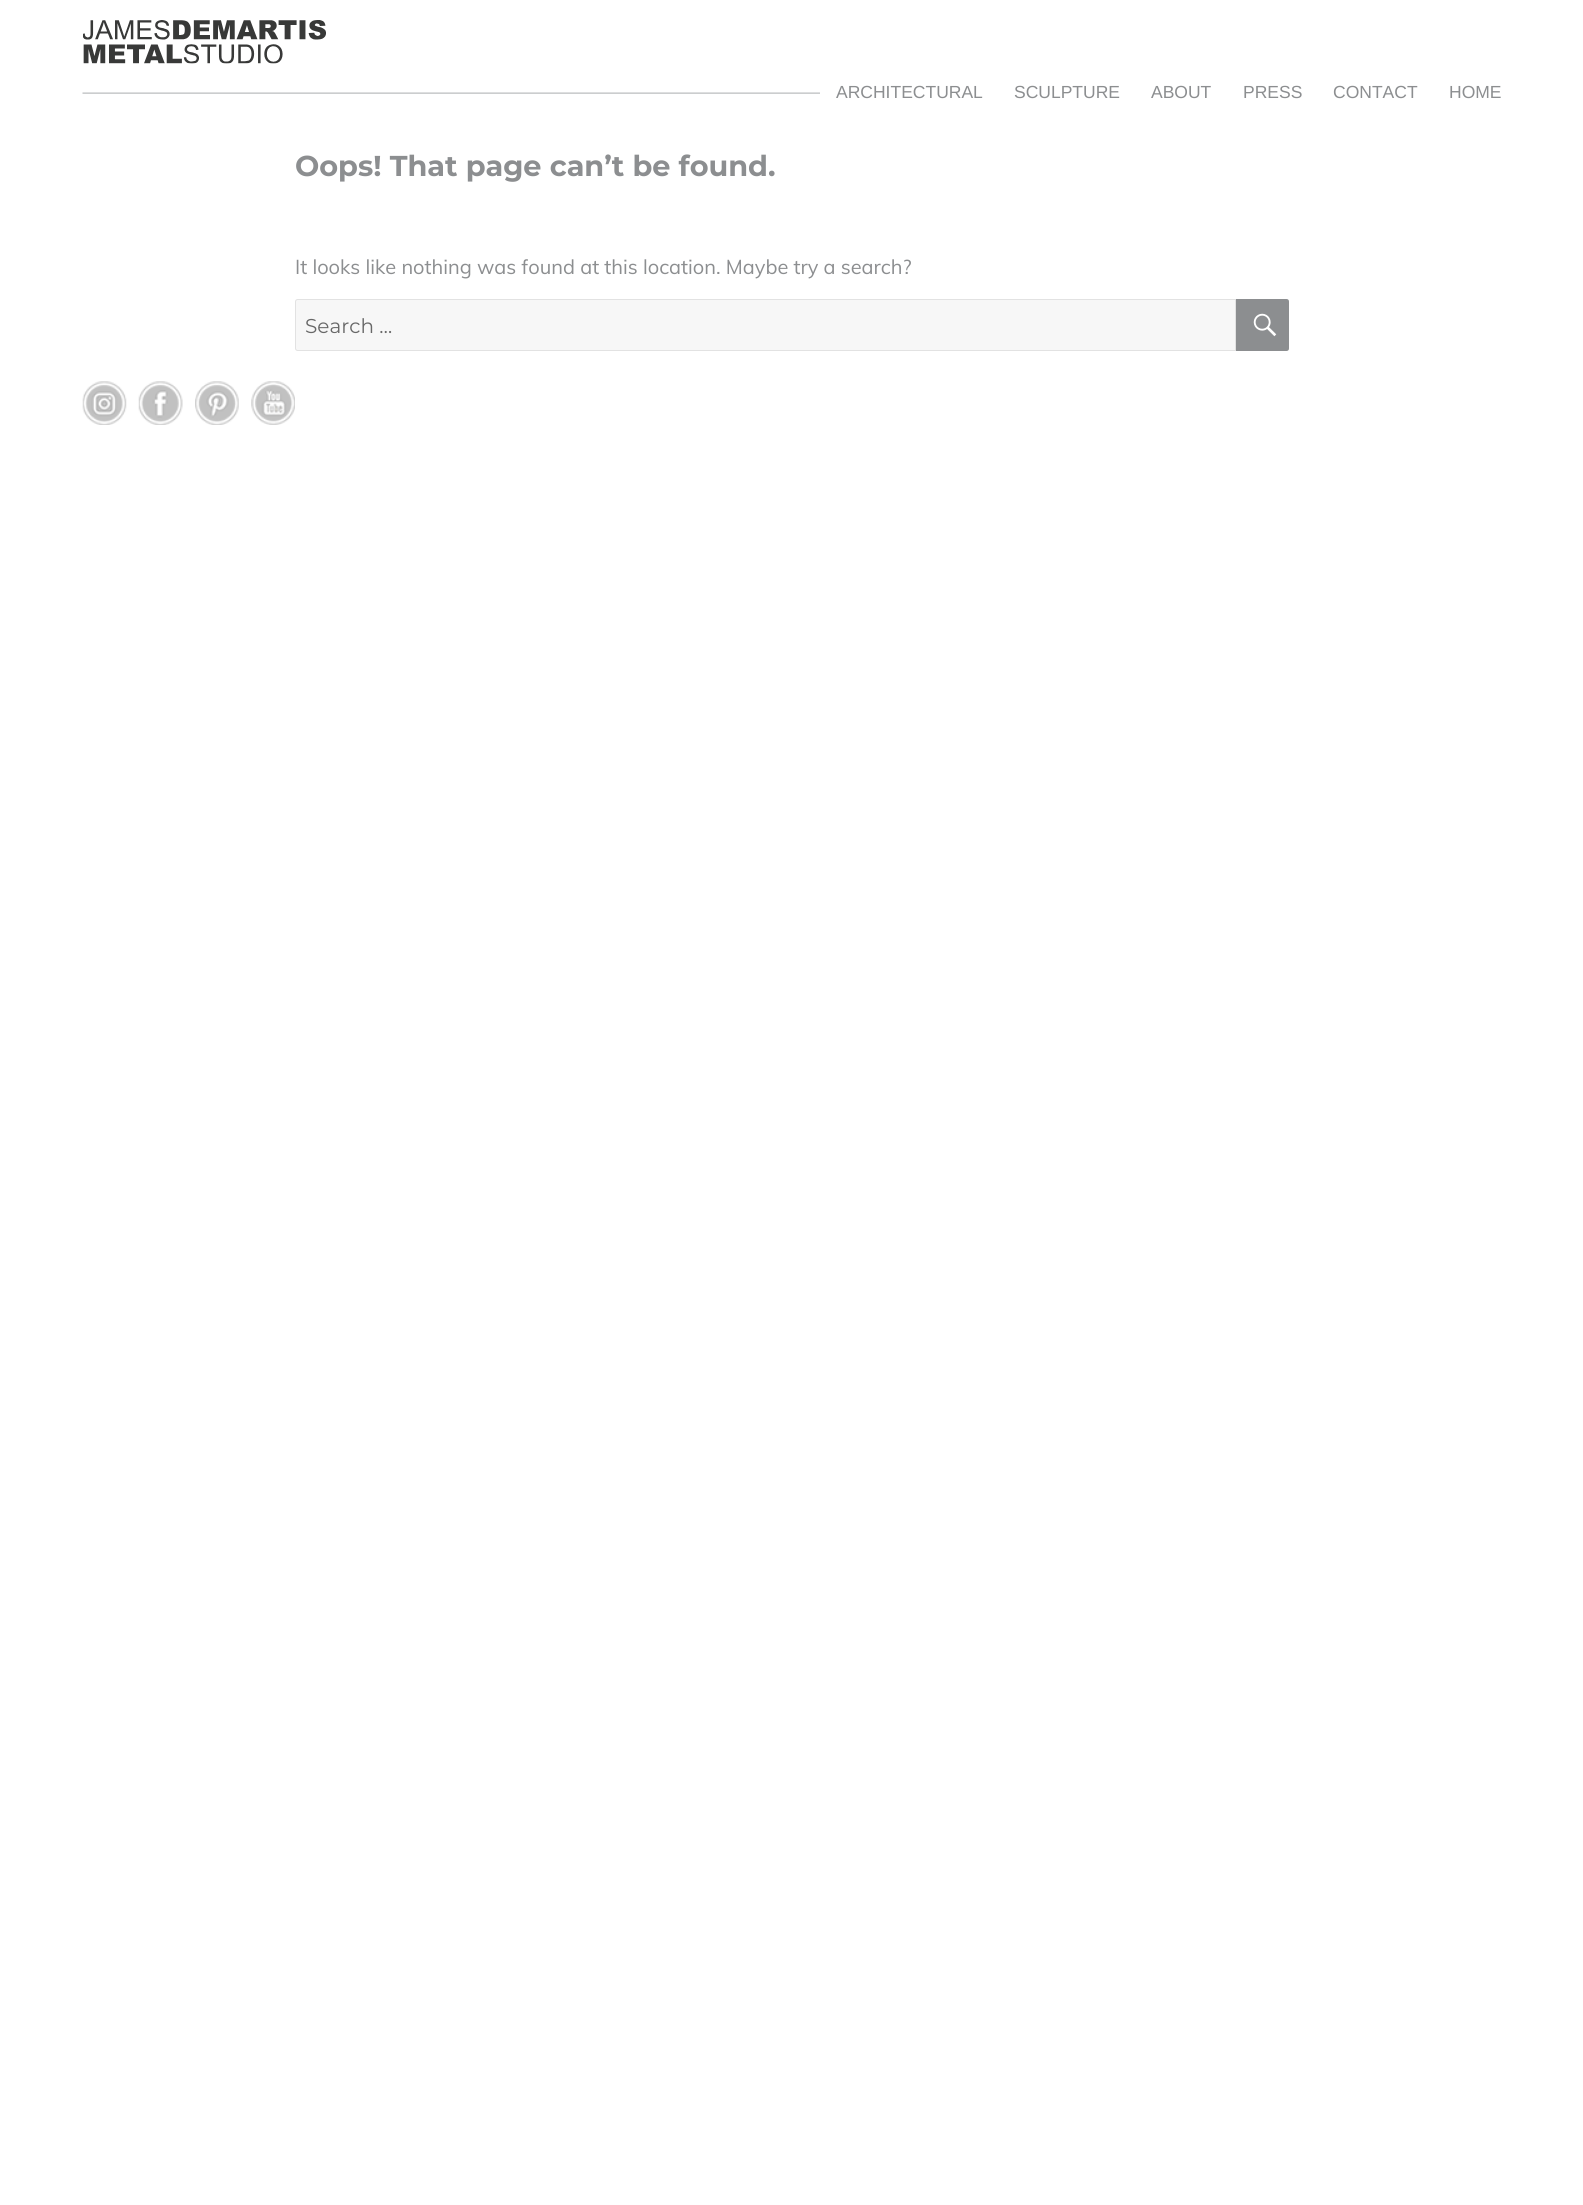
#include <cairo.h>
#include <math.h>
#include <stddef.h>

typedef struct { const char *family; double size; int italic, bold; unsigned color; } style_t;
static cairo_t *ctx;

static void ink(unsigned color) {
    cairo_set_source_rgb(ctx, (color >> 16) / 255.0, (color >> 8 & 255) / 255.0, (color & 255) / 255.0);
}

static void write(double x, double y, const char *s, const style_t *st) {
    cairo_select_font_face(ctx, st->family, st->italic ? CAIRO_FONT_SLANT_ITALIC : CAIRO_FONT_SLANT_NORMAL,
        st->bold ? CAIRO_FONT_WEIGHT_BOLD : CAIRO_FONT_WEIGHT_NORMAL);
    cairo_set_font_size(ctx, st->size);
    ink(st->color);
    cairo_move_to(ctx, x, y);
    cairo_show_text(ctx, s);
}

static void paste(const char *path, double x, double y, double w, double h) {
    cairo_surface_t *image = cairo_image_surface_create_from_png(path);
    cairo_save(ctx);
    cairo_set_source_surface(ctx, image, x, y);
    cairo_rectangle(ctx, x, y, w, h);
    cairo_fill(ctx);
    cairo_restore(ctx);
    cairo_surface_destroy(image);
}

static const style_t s1 = {"Arimo", 17.5, 0, 0, 0x8c8e90};
static const style_t s2 = {"Montserrat", 28.75, 0, 1, 0x8c8e90};
static const style_t s3 = {"Muli", 20, 0, 0, 0x8c8e90};
static const style_t s4 = {"Montserrat", 20, 0, 0, 0x686868};

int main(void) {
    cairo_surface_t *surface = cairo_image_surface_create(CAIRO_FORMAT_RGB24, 1583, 2205);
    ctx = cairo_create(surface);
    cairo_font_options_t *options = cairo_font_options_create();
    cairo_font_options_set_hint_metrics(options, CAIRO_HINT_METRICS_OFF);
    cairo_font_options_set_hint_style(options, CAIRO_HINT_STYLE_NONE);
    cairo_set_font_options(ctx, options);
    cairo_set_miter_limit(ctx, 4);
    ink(0xffffff);
    cairo_paint(ctx);
    paste("pic1.png", 83, 20, 243, 44);
    paste("pic2.png", 82, 92, 738, 2);
    write(836, 98, "ARCHITECTURAL", &s1);
    write(1014, 98, "SCULPTURE", &s1);
    write(1151, 98, "ABOUT", &s1);
    write(1243, 98, "PRESS", &s1);
    write(1333, 98, "CONTACT", &s1);
    write(1449, 98, "HOME", &s1);
    write(295, 176, "Oops! That page can’t be found.", &s2);
    write(295, 274, "It looks like nothing was found at this location. Maybe try a search?", &s3);
    ink(0xf7f7f7);
    cairo_new_path(ctx);
    cairo_move_to(ctx, 297.5, 299.5);
    cairo_line_to(ctx, 1235.5, 299.5);
    cairo_line_to(ctx, 1235.5, 350.5);
    cairo_line_to(ctx, 297.5, 350.5);
    cairo_curve_to(ctx, 296.5, 350.5, 295.5, 349.5, 295.5, 348.5);
    cairo_line_to(ctx, 295.5, 301.5);
    cairo_curve_to(ctx, 295.5, 300.5, 296.5, 299.5, 297.5, 299.5);
    cairo_close_path(ctx);
    cairo_fill_preserve(ctx);
    ink(0xe2e2e2);
    cairo_set_line_width(ctx, 1);
    cairo_stroke(ctx);
    write(305, 333, "Search …", &s4);
    ink(0x8c8e90);
    cairo_new_path(ctx);
    cairo_move_to(ctx, 1236, 299);
    cairo_line_to(ctx, 1286.5, 299);
    cairo_curve_to(ctx, 1288, 299, 1289, 300, 1289, 301.5);
    cairo_line_to(ctx, 1289, 348.5);
    cairo_curve_to(ctx, 1289, 350, 1288, 351, 1286.5, 351);
    cairo_line_to(ctx, 1236, 351);
    cairo_close_path(ctx);
    cairo_fill(ctx);
    paste("pic3.png", 1253, 313, 24, 24);
    paste("pic4.png", 82, 381, 45, 44);
    paste("pic5.png", 138, 381, 45, 44);
    paste("pic6.png", 195, 381, 44, 44);
    paste("pic7.png", 251, 381, 44, 44);
    cairo_surface_write_to_png(surface, "screenshot.png");
    cairo_font_options_destroy(options);
    cairo_destroy(ctx);
    cairo_surface_destroy(surface);
    return 0;
}
